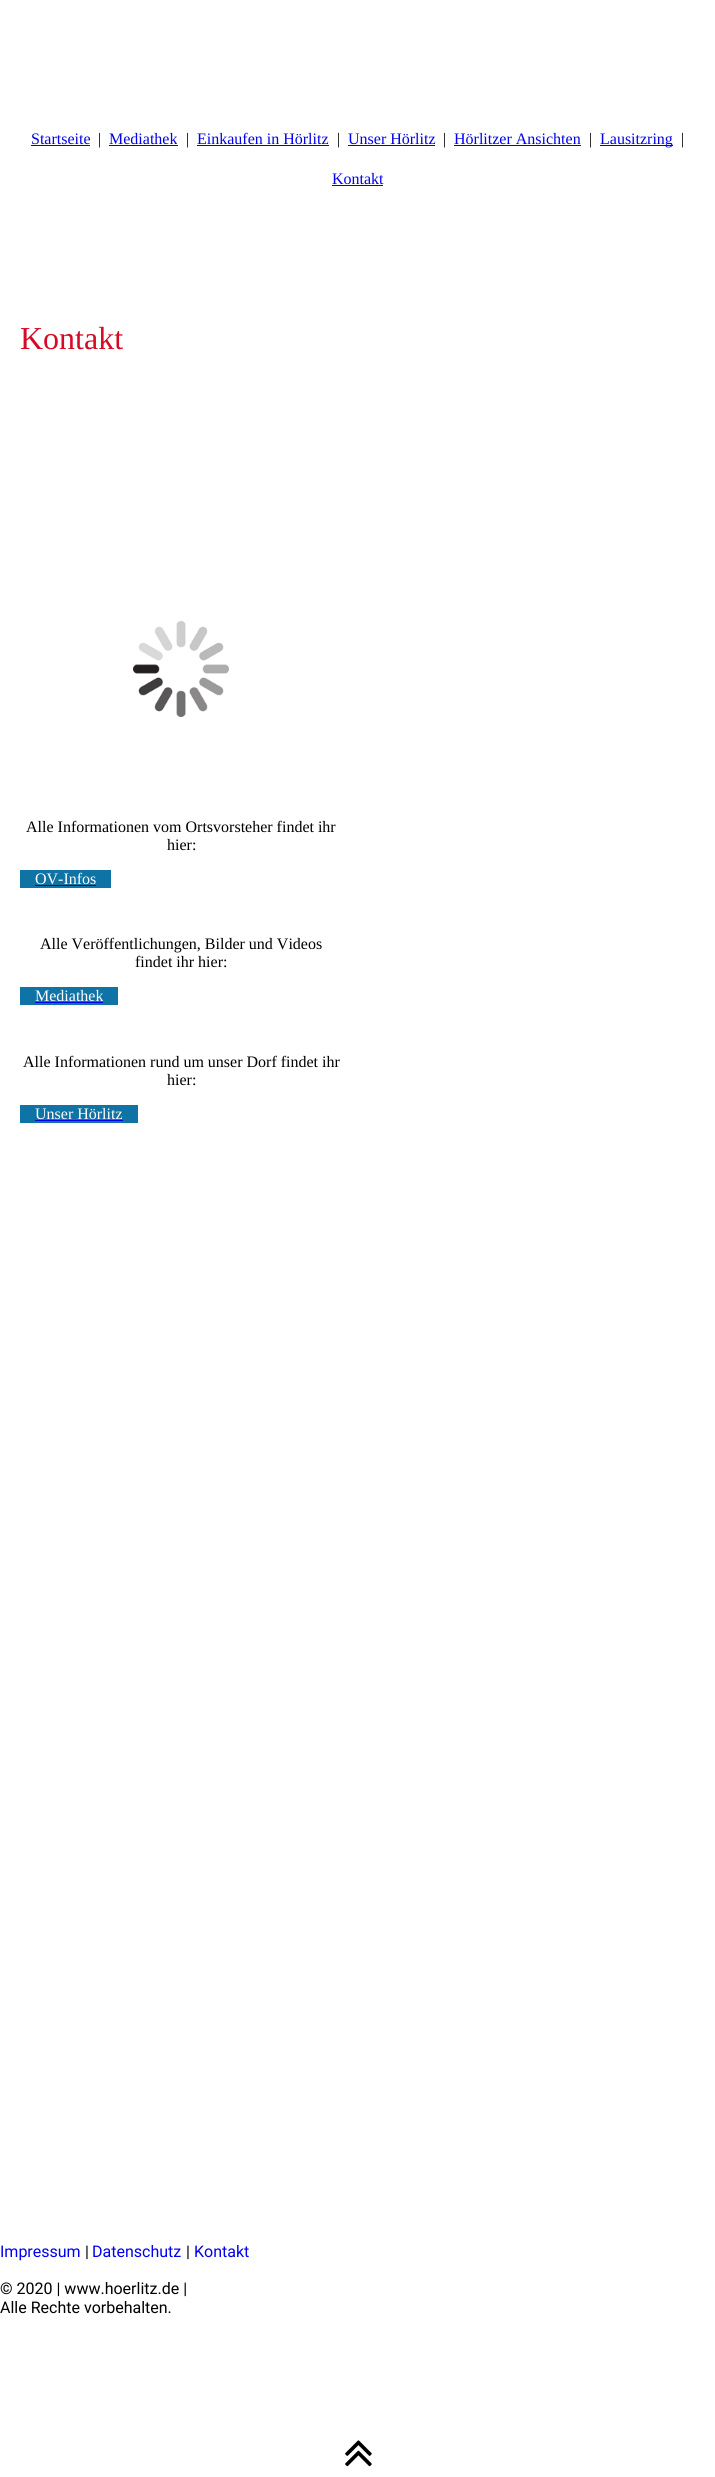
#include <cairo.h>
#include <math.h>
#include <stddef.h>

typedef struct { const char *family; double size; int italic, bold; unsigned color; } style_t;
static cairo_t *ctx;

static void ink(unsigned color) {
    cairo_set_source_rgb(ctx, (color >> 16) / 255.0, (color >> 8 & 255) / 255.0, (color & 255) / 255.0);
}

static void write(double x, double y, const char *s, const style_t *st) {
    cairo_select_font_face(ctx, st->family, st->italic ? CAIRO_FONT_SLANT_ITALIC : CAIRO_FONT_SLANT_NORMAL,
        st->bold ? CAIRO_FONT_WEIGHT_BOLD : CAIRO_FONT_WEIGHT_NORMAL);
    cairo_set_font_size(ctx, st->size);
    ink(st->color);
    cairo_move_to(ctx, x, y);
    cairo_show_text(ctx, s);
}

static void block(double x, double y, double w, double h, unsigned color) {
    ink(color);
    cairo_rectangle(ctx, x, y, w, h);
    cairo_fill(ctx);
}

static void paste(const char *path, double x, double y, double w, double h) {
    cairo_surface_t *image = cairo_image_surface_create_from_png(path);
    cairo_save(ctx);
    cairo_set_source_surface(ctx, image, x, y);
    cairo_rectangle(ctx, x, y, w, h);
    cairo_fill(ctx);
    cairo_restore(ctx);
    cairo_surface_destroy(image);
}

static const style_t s1 = {"Liberation Serif", 16, 0, 0, 0x0000ee};
static const style_t s2 = {"Liberation Serif", 16, 0, 0, 0x000000};
static const style_t s3 = {"Liberation Serif", 32, 0, 0, 0xd40b27};
static const style_t s4 = {"Liberation Serif", 16, 0, 0, 0xffffff};
static const style_t s5 = {"Roboto", 16, 0, 0, 0x0000ee};
static const style_t s6 = {"Roboto", 16, 0, 0, 0x000000};

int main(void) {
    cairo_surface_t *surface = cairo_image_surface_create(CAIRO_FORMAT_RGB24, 715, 2477);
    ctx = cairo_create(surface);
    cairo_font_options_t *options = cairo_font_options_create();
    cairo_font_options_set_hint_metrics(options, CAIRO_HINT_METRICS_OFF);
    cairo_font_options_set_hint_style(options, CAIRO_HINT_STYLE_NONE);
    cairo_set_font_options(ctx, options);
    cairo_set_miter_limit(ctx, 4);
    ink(0xffffff);
    cairo_paint(ctx);
    write(31, 144, "Startseite", &s1);
    block(31, 145, 59, 1, 0x0000ee);
    write(98, 144, "|", &s2);
    write(109, 144, "Mediathek", &s1);
    block(109, 145, 69, 1, 0x0000ee);
    write(186, 144, "|", &s2);
    write(197, 144, "Einkaufen in Hörlitz", &s1);
    block(197, 145, 132, 1, 0x0000ee);
    write(337, 144, "|", &s2);
    write(348, 144, "Unser Hörlitz", &s1);
    block(348, 145, 87, 1, 0x0000ee);
    write(443, 144, "|", &s2);
    write(454, 144, "Hörlitzer Ansichten", &s1);
    block(454, 145, 127, 1, 0x0000ee);
    write(589, 144, "|", &s2);
    block(600, 145, 73, 1, 0x0000ee);
    write(600, 144, "Lausitzring", &s1);
    write(681, 144, "|", &s2);
    write(332, 184, "Kontakt", &s1);
    block(332, 185, 51, 1, 0x0000ee);
    write(20, 349, "Kontakt", &s3);
    paste("pic1.png", 133, 621, 96, 96);
    write(26, 832, "Alle Informationen vom Ortsvorsteher findet ihr", &s2);
    write(167, 850, "hier:", &s2);
    block(20, 870, 91, 18, 0x1073a5);
    write(35, 884, "OV-Infos", &s4);
    block(35, 885, 61, 1, 0x0000ee);
    write(40, 949, "Alle Veröffentlichungen, Bilder und Videos", &s2);
    write(135, 967, "findet ihr hier:", &s2);
    block(20, 987, 98, 18, 0x1073a5);
    write(35, 1001, "Mediathek", &s4);
    block(35, 1002, 68, 1, 0x0000ee);
    write(23, 1067, "Alle Informationen rund um unser Dorf findet ihr", &s2);
    write(167, 1085, "hier:", &s2);
    block(20, 1105, 118, 18, 0x1073a5);
    write(35, 1119, "Unser Hörlitz", &s4);
    block(35, 1120, 88, 1, 0x0000ee);
    write(0, 2257, "Impressum", &s5);
    write(85, 2257, "|", &s6);
    write(92, 2257, "Datenschutz", &s5);
    write(186, 2257, "|", &s6);
    write(194, 2257, "Kontakt", &s5);
    write(0, 2294, "© 2020 | www.hoerlitz.de |", &s6);
    write(0, 2313, "Alle Rechte vorbehalten.", &s6);
    paste("pic2.png", 345, 2440, 27, 27);
    cairo_surface_write_to_png(surface, "screenshot.png");
    cairo_font_options_destroy(options);
    cairo_destroy(ctx);
    cairo_surface_destroy(surface);
    return 0;
}
